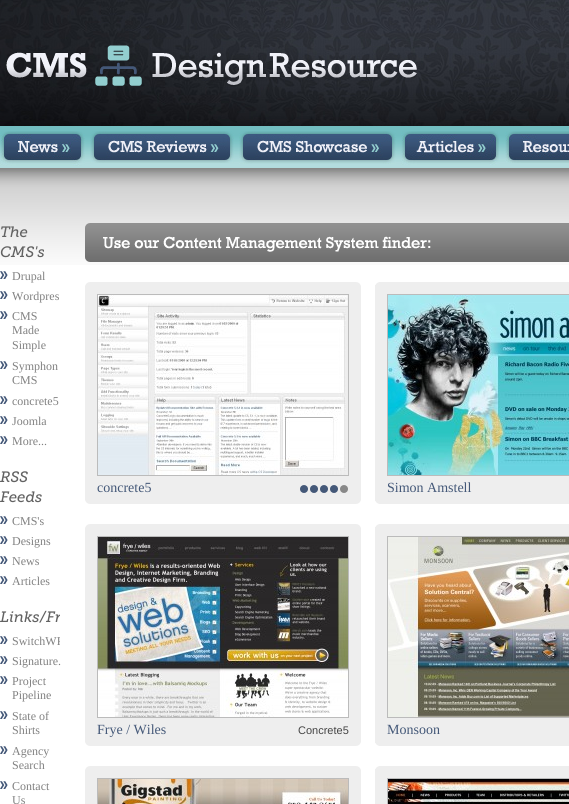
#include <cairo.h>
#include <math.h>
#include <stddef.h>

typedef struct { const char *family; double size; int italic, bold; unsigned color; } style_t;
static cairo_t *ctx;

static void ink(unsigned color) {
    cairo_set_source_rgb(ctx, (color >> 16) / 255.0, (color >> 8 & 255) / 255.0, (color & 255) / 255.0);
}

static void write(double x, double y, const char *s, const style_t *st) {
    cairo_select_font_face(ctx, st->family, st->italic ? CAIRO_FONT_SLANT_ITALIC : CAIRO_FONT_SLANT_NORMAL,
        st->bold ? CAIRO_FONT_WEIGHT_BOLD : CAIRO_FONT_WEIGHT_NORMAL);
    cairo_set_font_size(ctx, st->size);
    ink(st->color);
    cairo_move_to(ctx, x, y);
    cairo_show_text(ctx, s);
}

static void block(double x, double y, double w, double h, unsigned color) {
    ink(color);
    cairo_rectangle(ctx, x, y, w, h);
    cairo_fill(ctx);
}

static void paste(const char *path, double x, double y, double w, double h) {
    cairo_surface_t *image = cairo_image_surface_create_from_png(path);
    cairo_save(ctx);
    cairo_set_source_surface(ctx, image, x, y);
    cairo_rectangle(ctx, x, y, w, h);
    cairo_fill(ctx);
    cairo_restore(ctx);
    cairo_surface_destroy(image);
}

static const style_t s1 = {"Museo Slab", 15, 1, 0, 0x626262};
static const style_t s2 = {"Liberation Serif", 12, 0, 0, 0x818181};
static const style_t s3 = {"Liberation Serif", 14, 0, 0, 0x445878};
static const style_t s4 = {"Liberation Sans", 11, 0, 0, 0x444444};

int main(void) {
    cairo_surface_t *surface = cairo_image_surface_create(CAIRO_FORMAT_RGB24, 569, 804);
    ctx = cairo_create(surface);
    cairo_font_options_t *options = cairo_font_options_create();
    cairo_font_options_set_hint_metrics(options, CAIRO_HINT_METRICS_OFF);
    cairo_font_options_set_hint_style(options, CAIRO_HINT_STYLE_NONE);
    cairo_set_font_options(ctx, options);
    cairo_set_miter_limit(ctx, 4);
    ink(0xffffff);
    cairo_paint(ctx);
    paste("pic1.png", 0, 0, 569, 265);
    paste("pic2.png", 13, 0, 556, 126);
    paste("pic3.png", 6, 45, 411, 41);
    paste("pic4.png", 0, 131, 85, 35);
    paste("pic5.png", 90, 131, 144, 32);
    paste("pic6.png", 239, 131, 157, 33);
    paste("pic7.png", 401, 131, 98, 34);
    paste("pic8.png", 505, 131, 64, 32);
    write(0, 237, "The", &s1);
    write(0, 257, "CMS's", &s1);
    paste("pic9.png", 0, 271, 8, 8);
    write(12, 280, "Drupal", &s2);
    paste("pic9.png", 0, 291, 8, 8);
    write(12, 300, "Wordpres", &s2);
    paste("pic9.png", 0, 311, 8, 8);
    write(12, 320, "CMS", &s2);
    write(12, 334, "Made", &s2);
    write(12, 349, "Simple", &s2);
    paste("pic9.png", 0, 361, 8, 8);
    write(12, 370, "Symphon", &s2);
    write(12, 384, "CMS", &s2);
    paste("pic9.png", 0, 396, 8, 8);
    write(12, 405, "concrete5", &s2);
    paste("pic9.png", 0, 416, 8, 8);
    write(12, 425, "Joomla", &s2);
    paste("pic9.png", 0, 436, 8, 8);
    write(12, 445, "More...", &s2);
    write(0, 482, "RSS", &s1);
    write(0, 502, "Feeds", &s1);
    paste("pic9.png", 0, 516, 8, 8);
    write(12, 525, "CMS's", &s2);
    paste("pic9.png", 0, 536, 8, 8);
    write(12, 545, "Designs", &s2);
    paste("pic9.png", 0, 556, 8, 8);
    write(12, 565, "News", &s2);
    paste("pic9.png", 0, 576, 8, 8);
    write(12, 585, "Articles", &s2);
    cairo_save(ctx);
    cairo_rectangle(ctx, 0, 223, 60, 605);
    cairo_clip(ctx);
    write(0, 622, "Links/Fr", &s1);
    cairo_restore(ctx);
    paste("pic9.png", 0, 636, 8, 8);
    cairo_save(ctx);
    cairo_rectangle(ctx, 0, 223, 60, 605);
    cairo_clip(ctx);
    write(12, 645, "SwitchWP", &s2);
    cairo_restore(ctx);
    paste("pic9.png", 0, 656, 8, 8);
    write(12, 665, "Signature.", &s2);
    paste("pic9.png", 0, 676, 8, 8);
    write(12, 685, "Project", &s2);
    write(12, 699, "Pipeline", &s2);
    paste("pic9.png", 0, 711, 8, 8);
    write(12, 720, "State of", &s2);
    write(12, 734, "Shirts", &s2);
    paste("pic9.png", 0, 746, 8, 8);
    write(12, 755, "Agency", &s2);
    write(12, 769, "Search", &s2);
    paste("pic9.png", 0, 781, 8, 8);
    write(12, 790, "Contact", &s2);
    write(12, 804, "Us", &s2);
    paste("pic10.png", 85, 223, 484, 39);
    block(85, 282, 276, 222, 0xeeeeee);
    paste("pic11.png", 85, 282, 276, 4);
    paste("pic12.png", 85, 500, 276, 4);
    cairo_rectangle(ctx, 97.5, 294.5, 251, 181);
    ink(0xbbbbbb);
    cairo_set_line_width(ctx, 1);
    cairo_stroke(ctx);
    paste("pic13.png", 98, 295, 250, 180);
    write(97, 492, "concrete5", &s3);
    paste("pic14.png", 300, 485, 8, 8);
    paste("pic14.png", 310, 485, 8, 8);
    paste("pic14.png", 320, 485, 8, 8);
    paste("pic14.png", 330, 485, 8, 8);
    paste("pic15.png", 340, 485, 8, 8);
    block(375, 282, 194, 222, 0xeeeeee);
    paste("pic16.png", 375, 282, 4, 3);
    paste("pic17.png", 375, 501, 4, 3);
    cairo_rectangle(ctx, 387.5, 294.5, 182, 181);
    ink(0xbbbbbb);
    cairo_stroke(ctx);
    paste("pic18.png", 388, 295, 181, 180);
    write(387, 492, "Simon Amstell", &s3);
    block(85, 524, 276, 222, 0xeeeeee);
    paste("pic11.png", 85, 524, 276, 4);
    paste("pic12.png", 85, 742, 276, 4);
    cairo_rectangle(ctx, 97.5, 536.5, 251, 181);
    ink(0xbbbbbb);
    cairo_stroke(ctx);
    paste("pic19.png", 98, 537, 250, 180);
    write(97, 734, "Frye / Wiles", &s3);
    write(298, 734, "Concrete5", &s4);
    block(375, 524, 194, 222, 0xeeeeee);
    paste("pic16.png", 375, 524, 4, 3);
    paste("pic17.png", 375, 743, 4, 3);
    cairo_rectangle(ctx, 387.5, 536.5, 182, 181);
    ink(0xbbbbbb);
    cairo_stroke(ctx);
    paste("pic20.png", 388, 537, 181, 180);
    write(387, 734, "Monsoon", &s3);
    block(85, 766, 276, 38, 0xeeeeee);
    paste("pic11.png", 85, 766, 276, 4);
    cairo_rectangle(ctx, 97.5, 778.5, 251, 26);
    ink(0xbbbbbb);
    cairo_stroke(ctx);
    paste("pic21.png", 98, 779, 250, 25);
    block(375, 766, 194, 38, 0xeeeeee);
    paste("pic16.png", 375, 766, 4, 3);
    cairo_rectangle(ctx, 387.5, 778.5, 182, 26);
    ink(0xbbbbbb);
    cairo_stroke(ctx);
    paste("pic22.png", 388, 779, 181, 25);
    cairo_surface_write_to_png(surface, "screenshot.png");
    cairo_font_options_destroy(options);
    cairo_destroy(ctx);
    cairo_surface_destroy(surface);
    return 0;
}
